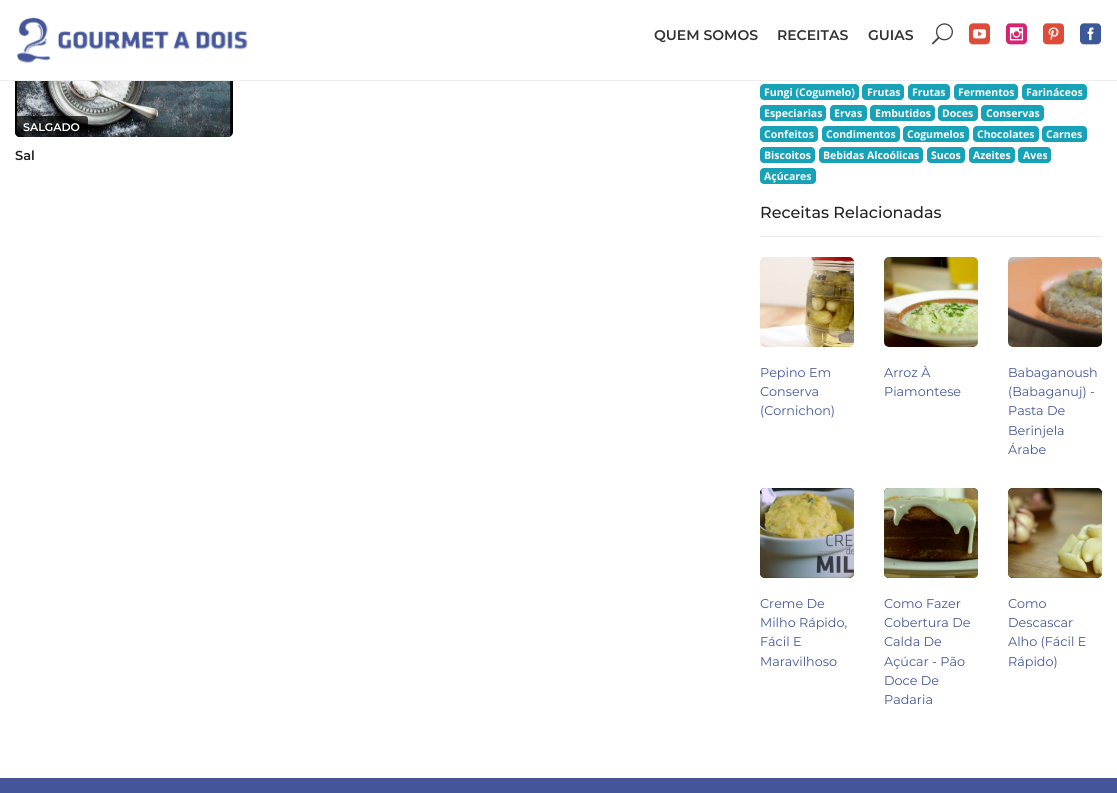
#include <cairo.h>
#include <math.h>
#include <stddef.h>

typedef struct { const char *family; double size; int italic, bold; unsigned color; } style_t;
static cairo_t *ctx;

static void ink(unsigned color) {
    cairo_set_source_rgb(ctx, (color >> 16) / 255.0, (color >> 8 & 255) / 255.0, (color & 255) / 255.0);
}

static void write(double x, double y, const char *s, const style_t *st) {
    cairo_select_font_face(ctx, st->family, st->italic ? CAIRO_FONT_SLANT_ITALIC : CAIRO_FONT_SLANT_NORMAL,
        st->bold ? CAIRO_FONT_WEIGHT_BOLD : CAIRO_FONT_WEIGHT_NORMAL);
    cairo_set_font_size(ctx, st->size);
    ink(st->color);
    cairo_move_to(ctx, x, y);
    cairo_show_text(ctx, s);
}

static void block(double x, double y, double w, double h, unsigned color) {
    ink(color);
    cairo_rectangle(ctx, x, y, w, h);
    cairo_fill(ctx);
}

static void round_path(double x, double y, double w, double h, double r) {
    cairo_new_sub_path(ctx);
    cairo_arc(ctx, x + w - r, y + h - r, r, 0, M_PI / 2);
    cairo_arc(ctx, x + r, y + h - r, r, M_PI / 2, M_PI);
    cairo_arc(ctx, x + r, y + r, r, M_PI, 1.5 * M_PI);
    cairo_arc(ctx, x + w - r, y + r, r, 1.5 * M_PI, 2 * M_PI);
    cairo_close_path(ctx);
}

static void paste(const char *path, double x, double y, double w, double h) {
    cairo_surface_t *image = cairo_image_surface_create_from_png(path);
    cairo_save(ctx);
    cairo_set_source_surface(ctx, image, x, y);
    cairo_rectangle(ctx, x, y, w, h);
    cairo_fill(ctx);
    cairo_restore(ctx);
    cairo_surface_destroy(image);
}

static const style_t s1 = {"Montserrat SemiBold", 14, 0, 0, 0x333333};
static const style_t s2 = {"Montserrat SemiBold", 11, 0, 0, 0xffffff};
static const style_t s3 = {"Montserrat SemiBold", 13, 0, 0, 0x222222};
static const style_t s4 = {"Open Sans", 10.5, 0, 1, 0xffffff};
static const style_t s5 = {"Montserrat Medium", 16, 0, 0, 0x222222};
static const style_t s6 = {"Montserrat", 12.75, 0, 0, 0x445699};

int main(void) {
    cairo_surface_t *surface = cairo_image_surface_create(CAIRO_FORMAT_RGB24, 1117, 793);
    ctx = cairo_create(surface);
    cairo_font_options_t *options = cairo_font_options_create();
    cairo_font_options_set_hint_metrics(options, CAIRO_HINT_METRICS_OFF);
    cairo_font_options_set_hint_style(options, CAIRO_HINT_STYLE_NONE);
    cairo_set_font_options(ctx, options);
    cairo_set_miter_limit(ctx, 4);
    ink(0xffffff);
    cairo_paint(ctx);
    ink(0x000000);
    round_path(15, 17, 218, 120, 5);
    cairo_fill(ctx);
    block(15, 17, 218, 63, 0xffffff);
    block(0, 80, 1117, 1, 0xededed);
    paste("pic1.png", 16, 17, 232, 46);
    write(654, 40, "QUEM SOMOS", &s1);
    write(777, 40, "RECEITAS", &s1);
    write(868, 40, "GUIAS", &s1);
    paste("pic2.png", 932, 23, 21, 22);
    paste("pic3.png", 969, 23, 21, 22);
    paste("pic4.png", 1006, 23, 21, 22);
    paste("pic5.png", 1043, 23, 21, 22);
    paste("pic6.png", 1080, 23, 21, 22);
    paste("pic7.png", 17, 81, 214, 56);
    cairo_set_source_rgba(ctx, 0, 0, 0, 0.7);
    cairo_new_path(ctx);
    cairo_move_to(ctx, 18, 116);
    cairo_line_to(ctx, 85, 116);
    cairo_curve_to(ctx, 86.5, 116, 88, 117.5, 88, 119);
    cairo_line_to(ctx, 88, 134);
    cairo_curve_to(ctx, 88, 135.5, 86.5, 137, 85, 137);
    cairo_line_to(ctx, 20, 137);
    cairo_curve_to(ctx, 17, 137, 15, 135, 15, 132);
    cairo_line_to(ctx, 15, 119);
    cairo_curve_to(ctx, 15, 117.5, 16.5, 116, 18, 116);
    cairo_close_path(ctx);
    cairo_fill(ctx);
    write(23, 131, "SALGADO", &s2);
    write(15, 160, "Sal", &s3);
    ink(0x17a2b8);
    round_path(760, 84, 99, 16, 4);
    cairo_fill(ctx);
    write(764, 96, "Fungi (Cogumelo)", &s4);
    ink(0x17a2b8);
    round_path(862, 84, 42, 16, 4);
    cairo_fill(ctx);
    write(867, 96, "Frutas", &s4);
    ink(0x17a2b8);
    round_path(908, 84, 42, 16, 4);
    cairo_fill(ctx);
    write(912, 96, "Frutas", &s4);
    ink(0x17a2b8);
    round_path(954, 84, 64, 16, 4);
    cairo_fill(ctx);
    write(958, 96, "Fermentos", &s4);
    ink(0x17a2b8);
    round_path(1022, 84, 65, 16, 4);
    cairo_fill(ctx);
    write(1026, 96, "Farináceos", &s4);
    ink(0x17a2b8);
    round_path(760, 105, 66, 16, 4);
    cairo_fill(ctx);
    write(764, 117, "Especiarias", &s4);
    ink(0x17a2b8);
    round_path(830, 105, 37, 16, 4);
    cairo_fill(ctx);
    write(834, 117, "Ervas", &s4);
    ink(0x17a2b8);
    round_path(870, 105, 65, 16, 4);
    cairo_fill(ctx);
    write(875, 117, "Embutidos", &s4);
    ink(0x17a2b8);
    round_path(938, 105, 40, 16, 4);
    cairo_fill(ctx);
    write(942, 117, "Doces", &s4);
    ink(0x17a2b8);
    round_path(981, 105, 63, 16, 4);
    cairo_fill(ctx);
    write(986, 117, "Conservas", &s4);
    ink(0x17a2b8);
    round_path(760, 126, 58, 16, 4);
    cairo_fill(ctx);
    write(764, 138, "Confeitos", &s4);
    ink(0x17a2b8);
    round_path(822, 126, 78, 16, 4);
    cairo_fill(ctx);
    write(826, 138, "Condimentos", &s4);
    ink(0x17a2b8);
    round_path(903, 126, 66, 16, 4);
    cairo_fill(ctx);
    write(907, 138, "Cogumelos", &s4);
    ink(0x17a2b8);
    round_path(973, 126, 66, 16, 4);
    cairo_fill(ctx);
    write(977, 138, "Chocolates", &s4);
    ink(0x17a2b8);
    round_path(1042, 126, 45, 16, 4);
    cairo_fill(ctx);
    write(1046, 138, "Carnes", &s4);
    ink(0x17a2b8);
    round_path(760, 147, 55, 16, 4);
    cairo_fill(ctx);
    write(764, 159, "Biscoitos", &s4);
    ink(0x17a2b8);
    round_path(819, 147, 104, 16, 4);
    cairo_fill(ctx);
    write(823, 159, "Bebidas Alcoólicas", &s4);
    ink(0x17a2b8);
    round_path(927, 147, 38, 16, 4);
    cairo_fill(ctx);
    write(931, 159, "Sucos", &s4);
    ink(0x17a2b8);
    round_path(969, 147, 46, 16, 4);
    cairo_fill(ctx);
    write(973, 159, "Azeites", &s4);
    ink(0x17a2b8);
    round_path(1018, 147, 33, 16, 4);
    cairo_fill(ctx);
    write(1023, 159, "Aves", &s4);
    ink(0x17a2b8);
    round_path(760, 168, 56, 16, 4);
    cairo_fill(ctx);
    write(764, 180, "Açúcares", &s4);
    block(760, 236, 342, 1, 0xededed);
    write(760, 218, "Receitas Relacionadas", &s5);
    paste("pic8.png", 760, 257, 94, 90);
    write(760, 377, "Pepino Em", &s6);
    write(760, 396, "Conserva", &s6);
    write(760, 415, "(Cornichon)", &s6);
    paste("pic9.png", 884, 257, 94, 90);
    write(884, 377, "Arroz À", &s6);
    write(884, 396, "Piamontese", &s6);
    paste("pic10.png", 1008, 257, 94, 90);
    write(1008, 377, "Babaganoush", &s6);
    write(1008, 396, "(Babaganuj) -", &s6);
    write(1008, 415, "Pasta De", &s6);
    write(1008, 435, "Berinjela", &s6);
    write(1008, 454, "Árabe", &s6);
    ink(0x000000);
    round_path(760, 488, 94, 90, 5);
    cairo_fill(ctx);
    paste("pic11.png", 760, 488, 94, 90);
    write(760, 608, "Creme De", &s6);
    write(760, 627, "Milho Rápido,", &s6);
    write(760, 646, "Fácil E", &s6);
    write(760, 666, "Maravilhoso", &s6);
    ink(0x000000);
    round_path(884, 488, 94, 90, 5);
    cairo_fill(ctx);
    paste("pic12.png", 884, 488, 94, 90);
    write(884, 608, "Como Fazer", &s6);
    write(884, 627, "Cobertura De", &s6);
    write(884, 646, "Calda De", &s6);
    write(884, 666, "Açúcar - Pão", &s6);
    write(884, 685, "Doce De", &s6);
    write(884, 704, "Padaria", &s6);
    ink(0x000000);
    round_path(1008, 488, 94, 90, 5);
    cairo_fill(ctx);
    paste("pic13.png", 1008, 488, 94, 90);
    write(1008, 608, "Como", &s6);
    write(1008, 627, "Descascar", &s6);
    write(1008, 646, "Alho (Fácil E", &s6);
    write(1008, 666, "Rápido)", &s6);
    block(0, 778, 1117, 15, 0x445699);
    cairo_surface_write_to_png(surface, "screenshot.png");
    cairo_font_options_destroy(options);
    cairo_destroy(ctx);
    cairo_surface_destroy(surface);
    return 0;
}
